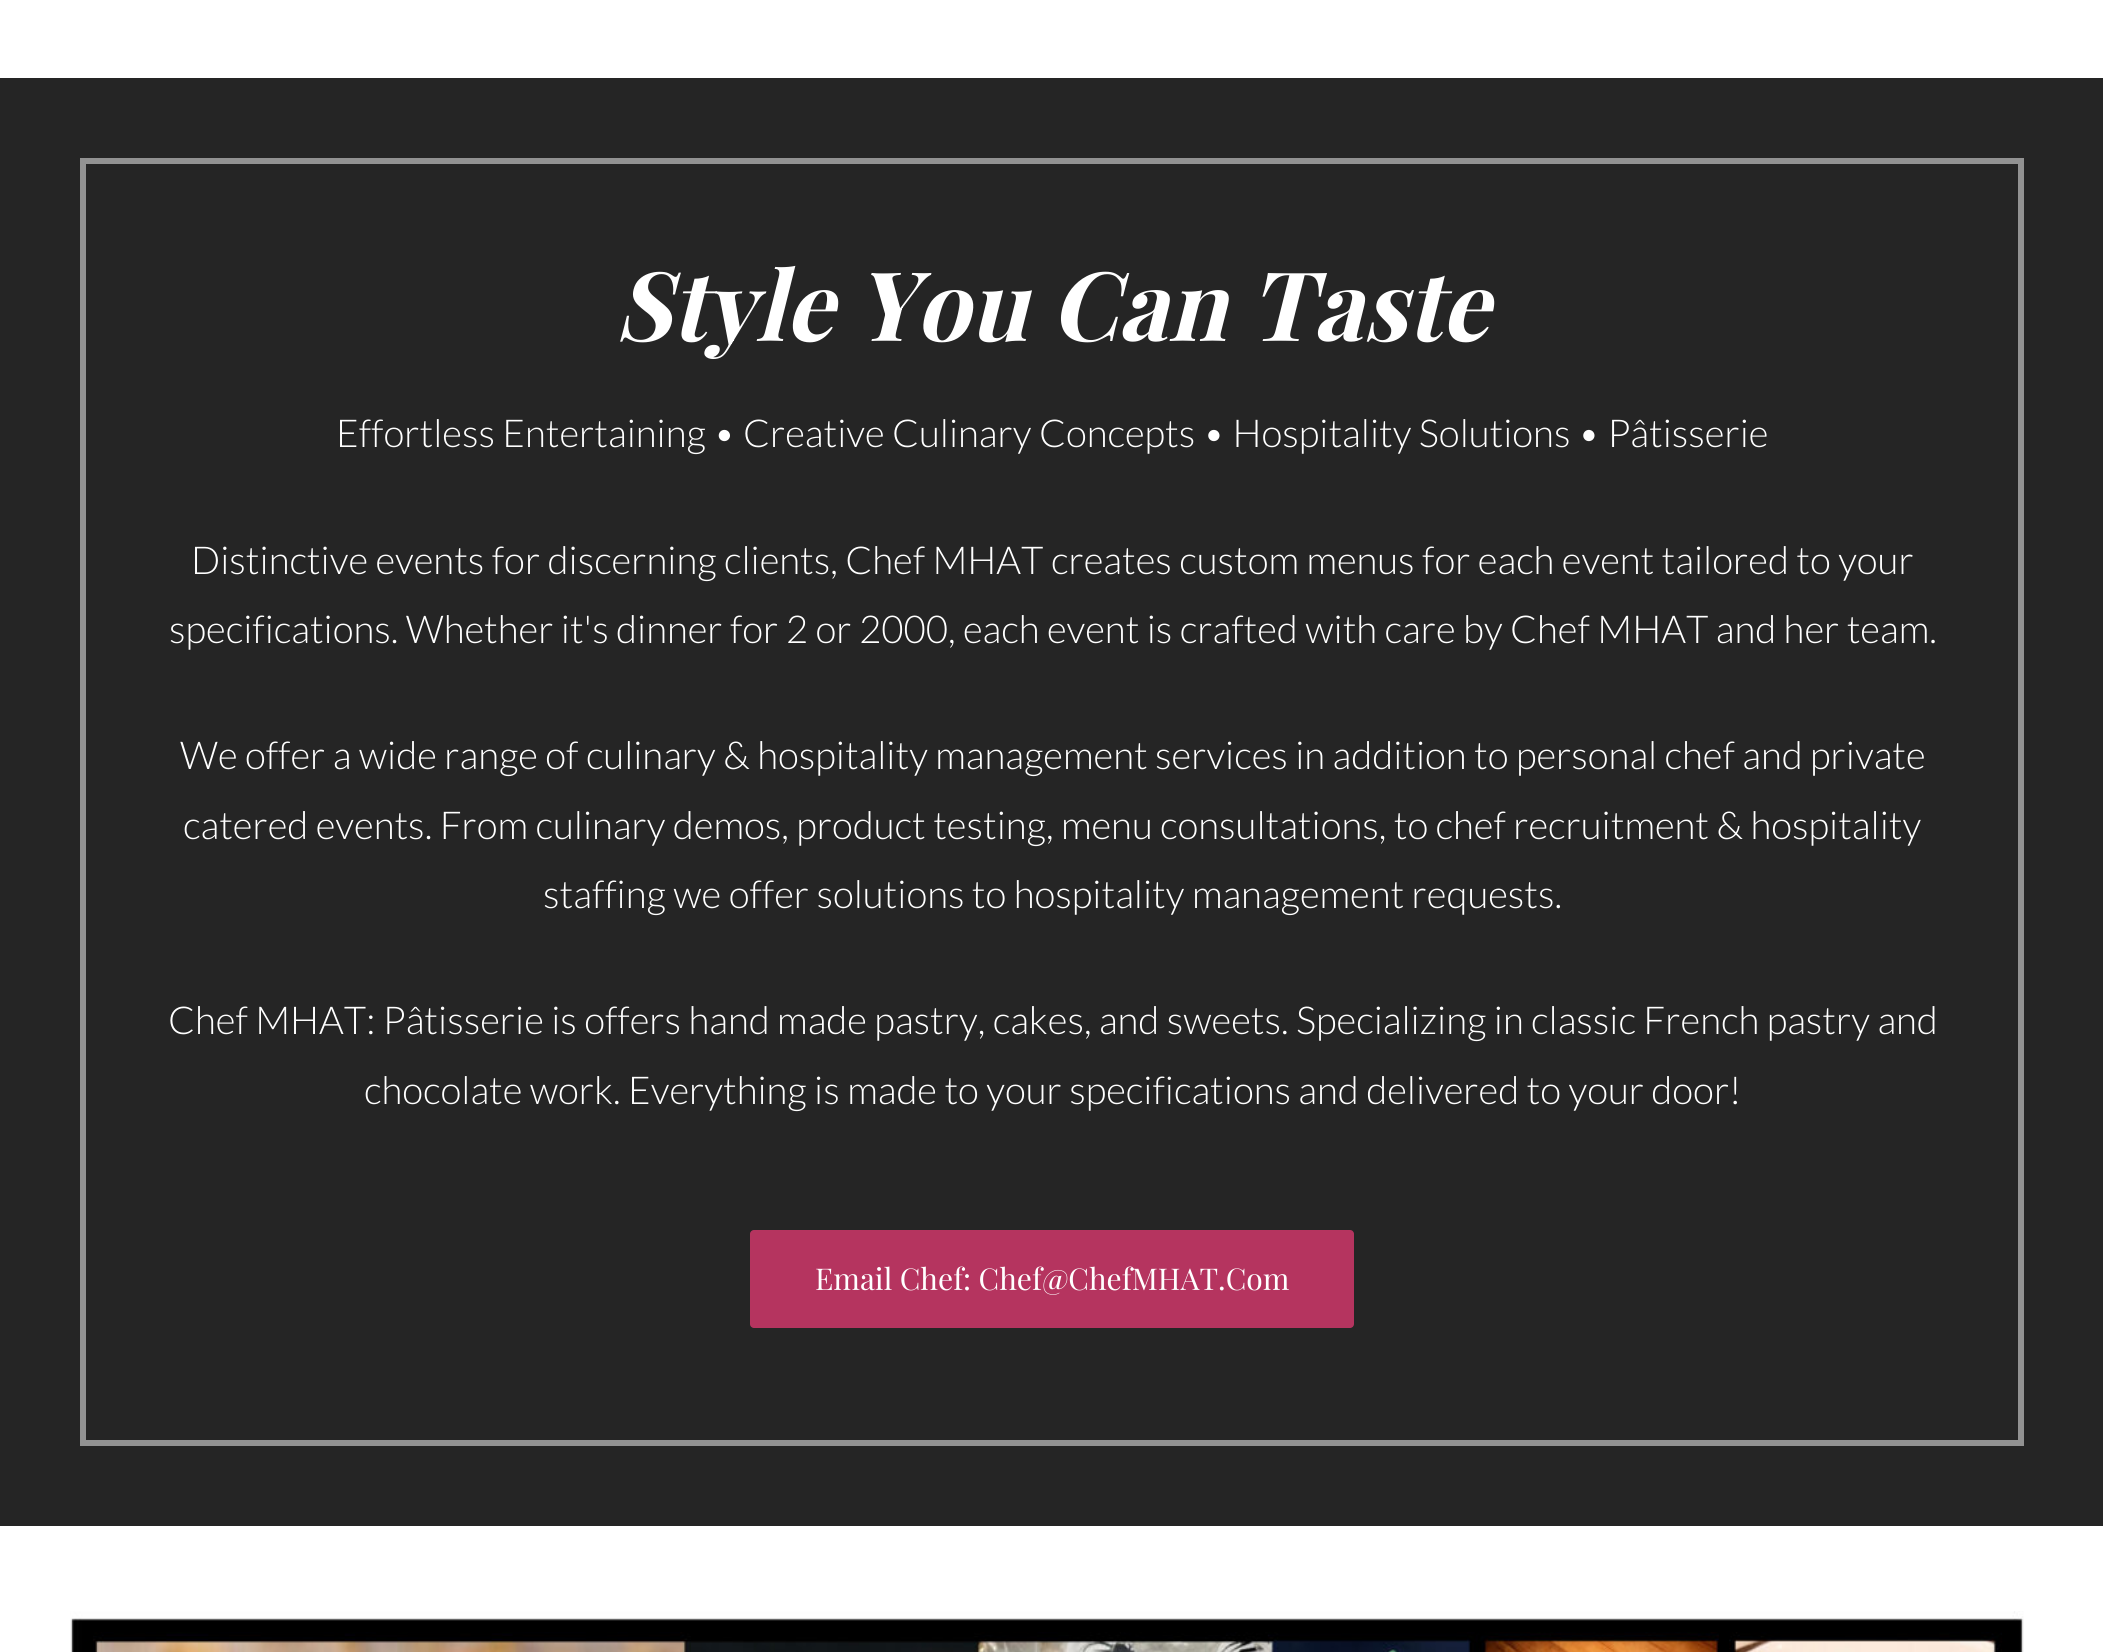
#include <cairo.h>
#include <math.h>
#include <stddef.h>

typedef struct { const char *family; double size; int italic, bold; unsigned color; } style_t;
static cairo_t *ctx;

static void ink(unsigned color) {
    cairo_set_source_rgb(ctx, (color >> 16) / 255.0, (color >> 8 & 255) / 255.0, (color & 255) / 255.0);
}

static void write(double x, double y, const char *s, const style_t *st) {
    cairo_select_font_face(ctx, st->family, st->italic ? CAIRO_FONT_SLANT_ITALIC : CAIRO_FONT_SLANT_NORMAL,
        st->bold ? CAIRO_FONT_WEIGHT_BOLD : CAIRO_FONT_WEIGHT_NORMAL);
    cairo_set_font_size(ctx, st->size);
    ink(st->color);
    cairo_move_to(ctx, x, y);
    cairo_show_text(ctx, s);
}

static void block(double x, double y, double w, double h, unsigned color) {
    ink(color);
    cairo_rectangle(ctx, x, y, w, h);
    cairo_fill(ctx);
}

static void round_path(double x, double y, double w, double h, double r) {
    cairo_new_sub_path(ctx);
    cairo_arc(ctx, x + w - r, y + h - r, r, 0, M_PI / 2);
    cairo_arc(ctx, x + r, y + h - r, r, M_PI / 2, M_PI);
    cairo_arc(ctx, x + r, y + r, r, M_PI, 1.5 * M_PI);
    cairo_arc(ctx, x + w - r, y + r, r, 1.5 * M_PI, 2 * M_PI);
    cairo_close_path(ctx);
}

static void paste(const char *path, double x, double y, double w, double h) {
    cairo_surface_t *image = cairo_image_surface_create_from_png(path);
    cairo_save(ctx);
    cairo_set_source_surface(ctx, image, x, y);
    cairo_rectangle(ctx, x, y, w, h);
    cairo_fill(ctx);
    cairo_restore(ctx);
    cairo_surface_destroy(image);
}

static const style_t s1 = {"Playfair Display", 96, 1, 1, 0xffffff};
static const style_t s2 = {"Lato Light", 38.4, 0, 0, 0xffffff};
static const style_t s3 = {"Playfair Display", 30, 0, 0, 0xffffff};

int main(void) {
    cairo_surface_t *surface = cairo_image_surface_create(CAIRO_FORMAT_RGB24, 2103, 1652);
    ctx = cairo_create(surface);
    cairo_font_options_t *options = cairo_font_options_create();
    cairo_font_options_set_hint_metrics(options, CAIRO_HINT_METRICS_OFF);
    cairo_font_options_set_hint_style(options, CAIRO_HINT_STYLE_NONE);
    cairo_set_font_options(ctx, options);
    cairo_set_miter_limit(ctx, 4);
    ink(0xffffff);
    cairo_paint(ctx);
    block(0, 78, 2103, 1448, 0x252525);
    cairo_rectangle(ctx, 83, 161, 1938, 1282);
    ink(0x929292);
    cairo_set_line_width(ctx, 6);
    cairo_stroke(ctx);
    write(615, 341, "Style You Can Taste", &s1);
    write(336, 447, "Effortless Entertaining • Creative Culinary Concepts • Hospitality Solutions • Pâtisserie", &s2);
    write(191, 574, "Distinctive events for discerning clients, Chef MHAT creates custom menus for each event tailored to your", &s2);
    write(169, 643, "specifications. Whether it's dinner for 2 or 2000, each event is crafted with care by Chef MHAT and her team.", &s2);
    write(180, 769, "We offer a wide range of culinary & hospitality management services in addition to personal chef and private", &s2);
    write(183, 839, "catered events. From culinary demos, product testing, menu consultations, to chef recruitment & hospitality", &s2);
    write(543, 908, "staffing we offer solutions to hospitality management requests.", &s2);
    write(168, 1034, "Chef MHAT: Pâtisserie is offers hand made pastry, cakes, and sweets. Specializing in classic French pastry and", &s2);
    write(364, 1104, "chocolate work. Everything is made to your specifications and delivered to your door!", &s2);
    ink(0xb5345f);
    round_path(750, 1230, 604, 98, 4);
    cairo_fill(ctx);
    write(815, 1290, "Email Chef: Chef@ChefMHAT.Com", &s3);
    paste("pic1.png", 70, 1611, 1954, 41);
    cairo_surface_write_to_png(surface, "screenshot.png");
    cairo_font_options_destroy(options);
    cairo_destroy(ctx);
    cairo_surface_destroy(surface);
    return 0;
}
